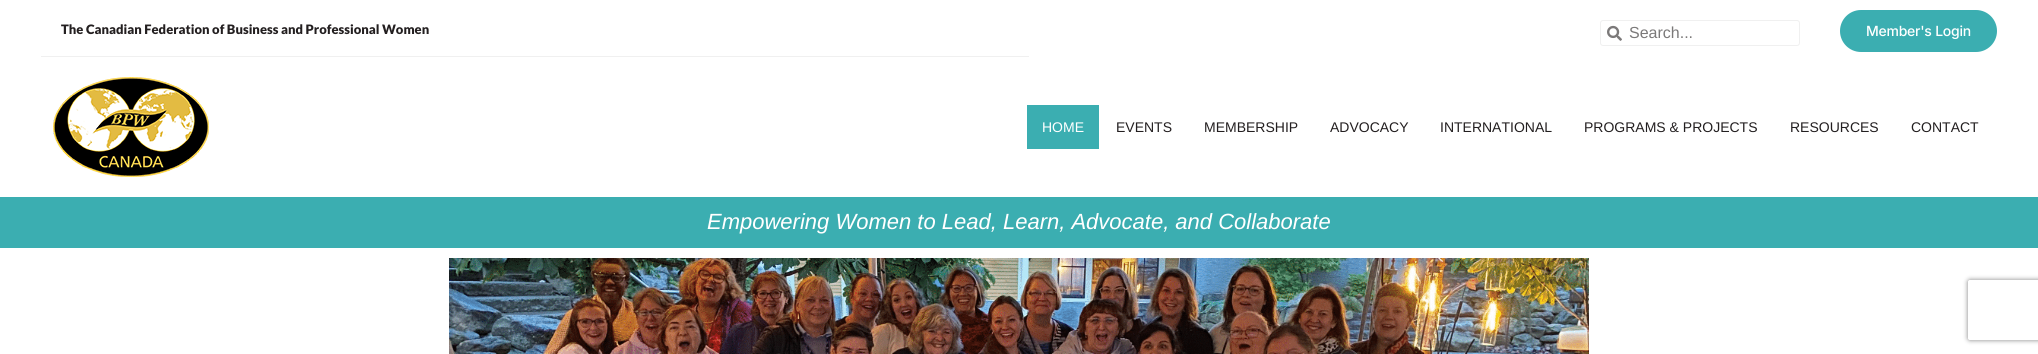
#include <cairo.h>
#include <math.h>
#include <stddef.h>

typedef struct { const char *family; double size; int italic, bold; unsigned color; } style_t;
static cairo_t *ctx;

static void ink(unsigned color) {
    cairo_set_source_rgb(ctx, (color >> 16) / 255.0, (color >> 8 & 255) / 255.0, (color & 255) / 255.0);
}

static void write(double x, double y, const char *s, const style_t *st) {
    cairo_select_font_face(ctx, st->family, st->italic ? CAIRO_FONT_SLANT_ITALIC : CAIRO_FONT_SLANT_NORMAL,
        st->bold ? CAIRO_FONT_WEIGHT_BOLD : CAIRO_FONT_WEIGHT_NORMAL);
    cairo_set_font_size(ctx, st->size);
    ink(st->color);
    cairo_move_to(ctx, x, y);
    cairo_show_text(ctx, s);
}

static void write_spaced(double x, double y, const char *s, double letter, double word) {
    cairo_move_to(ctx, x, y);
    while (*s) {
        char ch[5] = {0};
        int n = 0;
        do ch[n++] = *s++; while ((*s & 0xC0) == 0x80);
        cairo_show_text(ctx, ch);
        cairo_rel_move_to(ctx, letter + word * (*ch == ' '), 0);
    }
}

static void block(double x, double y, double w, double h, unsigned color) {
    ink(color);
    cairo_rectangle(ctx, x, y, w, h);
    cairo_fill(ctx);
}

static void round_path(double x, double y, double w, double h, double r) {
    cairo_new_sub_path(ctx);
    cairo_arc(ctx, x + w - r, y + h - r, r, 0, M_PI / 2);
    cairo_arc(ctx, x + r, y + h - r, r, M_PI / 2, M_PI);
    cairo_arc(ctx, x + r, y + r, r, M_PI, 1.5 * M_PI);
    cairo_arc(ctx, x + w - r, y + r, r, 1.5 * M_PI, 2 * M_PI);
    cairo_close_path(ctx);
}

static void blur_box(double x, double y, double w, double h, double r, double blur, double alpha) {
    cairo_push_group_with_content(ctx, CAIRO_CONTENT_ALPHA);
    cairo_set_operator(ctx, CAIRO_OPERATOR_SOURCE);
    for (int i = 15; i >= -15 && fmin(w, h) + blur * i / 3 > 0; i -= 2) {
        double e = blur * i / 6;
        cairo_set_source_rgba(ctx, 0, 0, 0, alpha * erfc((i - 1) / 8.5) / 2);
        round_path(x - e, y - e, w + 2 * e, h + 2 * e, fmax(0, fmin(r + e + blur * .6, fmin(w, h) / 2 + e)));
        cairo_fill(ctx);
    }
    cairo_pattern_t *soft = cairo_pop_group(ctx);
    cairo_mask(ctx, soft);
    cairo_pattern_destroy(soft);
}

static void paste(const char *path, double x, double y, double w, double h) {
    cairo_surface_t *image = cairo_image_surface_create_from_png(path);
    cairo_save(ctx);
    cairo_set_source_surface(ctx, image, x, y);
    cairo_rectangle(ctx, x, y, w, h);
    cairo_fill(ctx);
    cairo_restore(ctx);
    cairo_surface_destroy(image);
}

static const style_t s1 = {"Lato Black", 13, 0, 0, 0x231f20};
static const style_t s2 = {"Liberation Sans", 16, 0, 0, 0x7b7979};
static const style_t s3 = {"Liberation Sans", 14, 0, 0, 0xffffff};
static const style_t s4 = {"Liberation Sans", 14, 0, 0, 0x231f20};
static const style_t s5 = {"Liberation Sans", 22, 1, 0, 0xffffff};

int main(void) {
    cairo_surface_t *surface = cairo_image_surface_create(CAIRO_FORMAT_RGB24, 2038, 354);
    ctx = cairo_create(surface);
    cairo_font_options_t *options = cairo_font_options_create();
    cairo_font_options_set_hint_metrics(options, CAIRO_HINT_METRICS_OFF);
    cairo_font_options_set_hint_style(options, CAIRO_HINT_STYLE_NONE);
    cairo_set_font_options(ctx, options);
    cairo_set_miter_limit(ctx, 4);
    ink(0xffffff);
    cairo_paint(ctx);
    block(41, 56, 988, 1, 0xf0f0f0);
    write(61, 34, "The Canadian Federation of Business and Professional Women", &s1);
    round_path(1600.5, 20.5, 199, 25, 2.5);
    ink(0xf0f0f0);
    cairo_set_line_width(ctx, 1);
    cairo_stroke(ctx);
    paste("pic1.png", 1607, 25, 15, 16);
    write(1629, 38, "Search...", &s2);
    ink(0x3baeb1);
    round_path(1841, 11, 155, 40, 20);
    cairo_fill_preserve(ctx);
    cairo_set_line_width(ctx, 2);
    cairo_stroke(ctx);
    cairo_select_font_face(ctx, "Inter Medium", CAIRO_FONT_SLANT_NORMAL, CAIRO_FONT_WEIGHT_NORMAL);
    cairo_set_font_size(ctx, 14);
    ink(0xffffff);
    write_spaced(1866, 36, "Member's Login", -0.25, 0);
    paste("pic2.png", 53, 77, 156, 100);
    block(1027, 105, 72, 44, 0x3baeb1);
    write(1042, 132, "HOME", &s3);
    write(1116, 132, "EVENTS", &s4);
    write(1204, 132, "MEMBERSHIP", &s4);
    write(1330, 132, "ADVOCACY", &s4);
    write(1440, 132, "INTERNATIONAL", &s4);
    write(1584, 132, "PROGRAMS & PROJECTS", &s4);
    write(1790, 132, "RESOURCES", &s4);
    write(1911, 132, "CONTACT", &s4);
    block(0, 197, 2038, 51, 0x3baeb1);
    write(707, 229, "Empowering Women to Lead, Learn, Advocate, and Collaborate", &s5);
    paste("pic3.png", 449, 258, 1140, 96);
    cairo_save(ctx);
    cairo_set_fill_rule(ctx, CAIRO_FILL_RULE_EVEN_ODD);
    cairo_new_path(ctx);
    cairo_move_to(ctx, 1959, 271);
    cairo_line_to(ctx, 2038, 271);
    cairo_line_to(ctx, 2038, 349);
    cairo_line_to(ctx, 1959, 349);
    cairo_close_path(ctx);
    cairo_move_to(ctx, 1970, 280);
    cairo_line_to(ctx, 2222, 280);
    cairo_curve_to(ctx, 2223, 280, 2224, 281, 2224, 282);
    cairo_line_to(ctx, 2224, 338);
    cairo_curve_to(ctx, 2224, 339, 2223, 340, 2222, 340);
    cairo_line_to(ctx, 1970, 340);
    cairo_curve_to(ctx, 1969, 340, 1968, 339, 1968, 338);
    cairo_line_to(ctx, 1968, 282);
    cairo_curve_to(ctx, 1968, 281, 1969, 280, 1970, 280);
    cairo_close_path(ctx);
    cairo_clip(ctx);
    ink(0x808080);
    blur_box(1968, 280, 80, 60, 2, 2.5, 1);
    cairo_restore(ctx);
    cairo_surface_write_to_png(surface, "screenshot.png");
    cairo_font_options_destroy(options);
    cairo_destroy(ctx);
    cairo_surface_destroy(surface);
    return 0;
}
